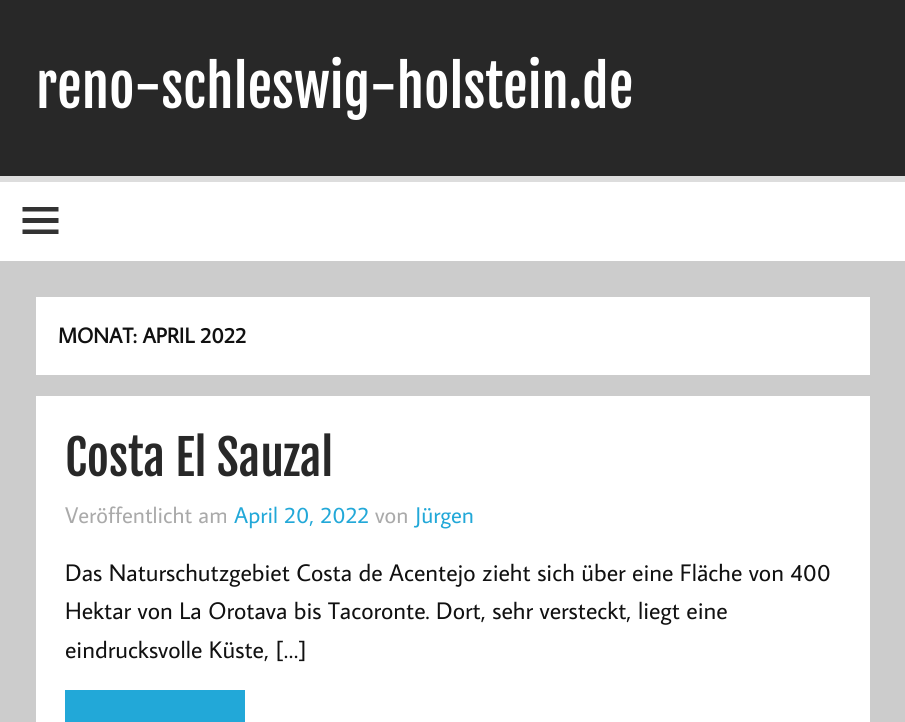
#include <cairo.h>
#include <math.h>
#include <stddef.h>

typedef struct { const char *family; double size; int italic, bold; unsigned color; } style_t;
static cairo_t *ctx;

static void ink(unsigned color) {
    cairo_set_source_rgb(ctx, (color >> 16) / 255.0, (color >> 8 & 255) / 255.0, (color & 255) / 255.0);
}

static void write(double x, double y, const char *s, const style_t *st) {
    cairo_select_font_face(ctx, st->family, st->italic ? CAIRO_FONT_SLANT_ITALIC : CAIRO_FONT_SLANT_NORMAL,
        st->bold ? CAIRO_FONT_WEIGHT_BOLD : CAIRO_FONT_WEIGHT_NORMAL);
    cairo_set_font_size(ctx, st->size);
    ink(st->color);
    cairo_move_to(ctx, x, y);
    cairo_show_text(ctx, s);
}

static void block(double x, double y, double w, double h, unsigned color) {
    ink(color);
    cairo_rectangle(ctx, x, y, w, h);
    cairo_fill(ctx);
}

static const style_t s1 = {"Fjalla One", 55.25, 0, 0, 0xffffff};
static const style_t s2 = {"Average Sans", 21.5, 0, 1, 0x111111};
static const style_t s3 = {"Fjalla One", 48, 0, 0, 0x282828};
static const style_t s4 = {"Average Sans", 22.75, 0, 0, 0xaaaaaa};
static const style_t s5 = {"Average Sans", 22.75, 0, 0, 0x22a8d8};
static const style_t s6 = {"Average Sans", 24, 0, 0, 0x111111};

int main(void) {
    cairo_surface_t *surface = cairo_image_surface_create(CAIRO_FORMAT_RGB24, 905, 722);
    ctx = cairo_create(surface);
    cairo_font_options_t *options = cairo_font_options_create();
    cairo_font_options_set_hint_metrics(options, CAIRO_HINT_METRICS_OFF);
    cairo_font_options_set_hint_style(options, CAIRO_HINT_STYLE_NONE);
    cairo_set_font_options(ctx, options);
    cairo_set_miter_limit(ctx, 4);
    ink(0xcccccc);
    cairo_paint(ctx);
    block(0, 0, 905, 176, 0x282828);
    write(36, 108, "reno-schleswig-holstein.de", &s1);
    block(0, 182, 905, 79, 0xffffff);
    block(0, 176, 905, 6, 0xdddddd);
    ink(0x333333);
    cairo_new_path(ctx);
    cairo_move_to(ctx, 22.5, 234);
    cairo_line_to(ctx, 22.5, 229.5);
    cairo_line_to(ctx, 58.5, 229.5);
    cairo_line_to(ctx, 58.5, 234);
    cairo_close_path(ctx);
    cairo_move_to(ctx, 22.5, 207);
    cairo_line_to(ctx, 58.5, 207);
    cairo_line_to(ctx, 58.5, 211.5);
    cairo_line_to(ctx, 22.5, 211.5);
    cairo_close_path(ctx);
    cairo_move_to(ctx, 22.5, 223);
    cairo_line_to(ctx, 22.5, 218);
    cairo_line_to(ctx, 58.5, 218);
    cairo_line_to(ctx, 58.5, 223);
    cairo_close_path(ctx);
    cairo_fill(ctx);
    block(36, 297, 834, 78, 0xffffff);
    write(58, 343, "MONAT: APRIL 2022", &s2);
    block(36, 396, 834, 326, 0xffffff);
    write(65, 476, "Costa El Sauzal", &s3);
    write(65, 523, "Veröffentlicht am", &s4);
    write(234, 523, "April 20, 2022", &s5);
    write(375, 523, "von", &s4);
    write(415, 523, "Jürgen", &s5);
    write(65, 581, "Das Naturschutzgebiet Costa de Acentejo zieht sich über eine Fläche von 400", &s6);
    write(65, 619, "Hektar von La Orotava bis Tacoronte. Dort, sehr versteckt, liegt eine", &s6);
    write(65, 658, "eindrucksvolle Küste, […]", &s6);
    block(65, 690, 180, 32, 0x22a8d8);
    cairo_surface_write_to_png(surface, "screenshot.png");
    cairo_font_options_destroy(options);
    cairo_destroy(ctx);
    cairo_surface_destroy(surface);
    return 0;
}
